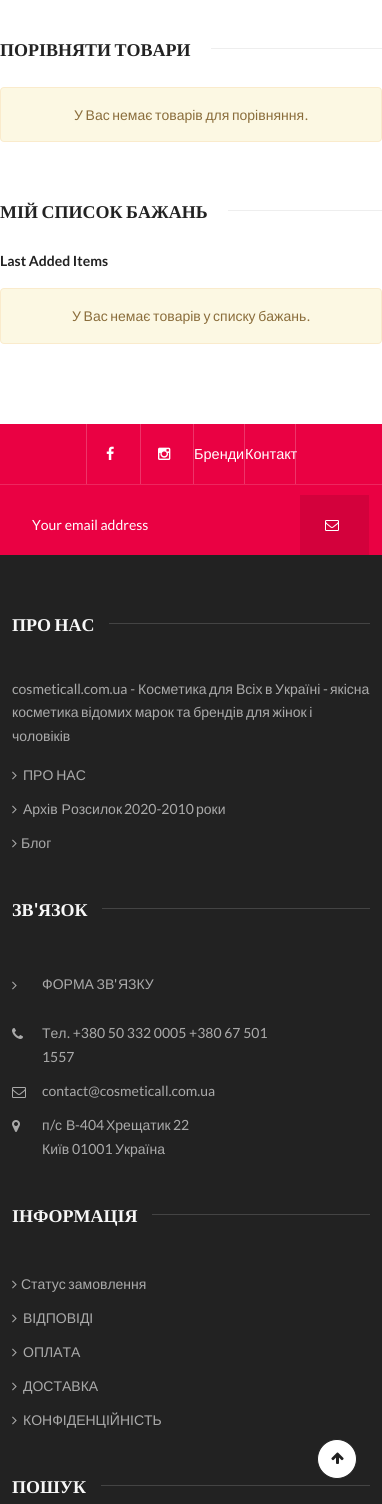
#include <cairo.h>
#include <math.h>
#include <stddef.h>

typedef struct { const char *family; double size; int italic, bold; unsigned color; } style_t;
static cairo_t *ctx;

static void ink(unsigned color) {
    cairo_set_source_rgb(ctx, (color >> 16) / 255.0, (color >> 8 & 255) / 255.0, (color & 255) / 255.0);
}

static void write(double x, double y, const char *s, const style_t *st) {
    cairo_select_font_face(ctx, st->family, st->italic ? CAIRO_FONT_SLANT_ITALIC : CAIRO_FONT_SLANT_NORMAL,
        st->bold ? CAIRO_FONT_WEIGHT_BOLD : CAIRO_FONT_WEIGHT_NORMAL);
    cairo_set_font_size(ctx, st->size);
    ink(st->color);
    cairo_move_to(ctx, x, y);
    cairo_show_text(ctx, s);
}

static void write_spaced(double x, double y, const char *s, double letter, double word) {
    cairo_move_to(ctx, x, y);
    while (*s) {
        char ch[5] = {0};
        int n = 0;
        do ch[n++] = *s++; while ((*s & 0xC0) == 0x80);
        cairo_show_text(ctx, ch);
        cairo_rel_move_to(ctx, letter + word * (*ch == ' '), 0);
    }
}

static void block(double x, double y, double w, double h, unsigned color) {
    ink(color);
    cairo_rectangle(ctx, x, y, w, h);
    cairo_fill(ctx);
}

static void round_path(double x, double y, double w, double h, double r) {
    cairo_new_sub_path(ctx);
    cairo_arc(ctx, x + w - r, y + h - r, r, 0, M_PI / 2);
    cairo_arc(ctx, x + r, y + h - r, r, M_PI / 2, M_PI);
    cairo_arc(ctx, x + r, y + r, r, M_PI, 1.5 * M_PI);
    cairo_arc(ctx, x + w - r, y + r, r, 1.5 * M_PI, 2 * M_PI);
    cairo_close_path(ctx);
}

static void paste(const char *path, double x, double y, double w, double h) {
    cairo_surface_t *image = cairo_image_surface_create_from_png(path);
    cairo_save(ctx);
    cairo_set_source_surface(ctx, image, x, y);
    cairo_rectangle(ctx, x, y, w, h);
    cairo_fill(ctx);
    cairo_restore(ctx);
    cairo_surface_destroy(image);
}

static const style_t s1 = {"Lato", 14, 0, 0, 0x8a6d3b};
static const style_t s2 = {"Lato", 14, 0, 1, 0x222222};
static const style_t s3 = {"Liberation Sans", 14.5, 0, 0, 0xffffff};
static const style_t s4 = {"Lato", 14, 0, 0, 0xffffff};
static const style_t s5 = {"Lato", 14, 0, 0, 0xaaaaaa};
static const style_t s6 = {"Liberation Sans", 14, 0, 0, 0xaaaaaa};
static const style_t s7 = {"Liberation Serif", 18, 0, 1, 0xf7f7f7};
static const style_t s8 = {"Lato", 18, 0, 1, 0xf7f7f7};

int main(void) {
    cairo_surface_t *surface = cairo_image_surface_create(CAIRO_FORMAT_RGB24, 382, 1504);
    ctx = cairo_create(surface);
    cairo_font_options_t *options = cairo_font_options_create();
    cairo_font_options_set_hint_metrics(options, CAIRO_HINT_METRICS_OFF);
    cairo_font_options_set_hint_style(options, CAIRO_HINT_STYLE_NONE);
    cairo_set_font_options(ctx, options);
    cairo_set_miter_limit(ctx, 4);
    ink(0xffffff);
    cairo_paint(ctx);
    cairo_select_font_face(ctx, "Liberation Serif", CAIRO_FONT_SLANT_NORMAL, CAIRO_FONT_WEIGHT_BOLD);
    cairo_set_font_size(ctx, 18);
    ink(0x222222);
    write_spaced(0, 56, "ПОРІВНЯТИ ТОВАРИ", 0, -1);
    block(211, 48, 171, 1, 0xeeeeee);
    ink(0xfcf8e3);
    round_path(0.5, 87.5, 381, 54, 3.5);
    cairo_fill_preserve(ctx);
    ink(0xfaebcc);
    cairo_set_line_width(ctx, 1);
    cairo_stroke(ctx);
    cairo_select_font_face(ctx, "Liberation Sans", CAIRO_FONT_SLANT_NORMAL, CAIRO_FONT_WEIGHT_NORMAL);
    cairo_set_font_size(ctx, 14);
    ink(0x8a6d3b);
    write_spaced(74, 120, "У Вас немає товарів для порівняння", 0, -1.25);
    write(305, 120, ".", &s1);
    cairo_select_font_face(ctx, "Liberation Serif", CAIRO_FONT_SLANT_NORMAL, CAIRO_FONT_WEIGHT_BOLD);
    cairo_set_font_size(ctx, 18);
    ink(0x222222);
    write_spaced(0, 218, "МІЙ СПИСОК БАЖАНЬ", 0, -1);
    block(228, 210, 154, 1, 0xeeeeee);
    write(0, 266, "Last Added Items", &s2);
    ink(0xfcf8e3);
    round_path(0.5, 288.5, 381, 55, 3.5);
    cairo_fill_preserve(ctx);
    ink(0xfaebcc);
    cairo_stroke(ctx);
    cairo_select_font_face(ctx, "Liberation Sans", CAIRO_FONT_SLANT_NORMAL, CAIRO_FONT_WEIGHT_NORMAL);
    ink(0x8a6d3b);
    write_spaced(72, 321, "У Вас немає товарів у списку бажань", 0, -1.25);
    write(307, 321, ".", &s1);
    block(0, 555, 382, 949, 0x222222);
    block(0, 424, 382, 131, 0xea0143);
    block(0, 484, 382, 1, 0xed275f);
    block(86, 424, 1, 60, 0xee3469);
    paste("pic1.png", 106, 446, 8, 14);
    block(140, 424, 1, 60, 0xee3469);
    paste("pic2.png", 158, 447, 13, 13);
    block(193, 424, 1, 60, 0xee3469);
    write(194, 459, "Бренди", &s3);
    block(295, 424, 1, 60, 0xee3469);
    block(244, 424, 1, 60, 0xee3469);
    write(245, 459, "Контакт", &s3);
    write(32, 530, "Your email address", &s4);
    block(300, 495, 69, 60, 0xd3013c);
    paste("pic3.png", 325, 520, 14, 11);
    cairo_select_font_face(ctx, "Liberation Serif", CAIRO_FONT_SLANT_NORMAL, CAIRO_FONT_WEIGHT_BOLD);
    cairo_set_font_size(ctx, 18);
    ink(0xf7f7f7);
    write_spaced(12, 631, "ПРО НАС", 0, -1);
    block(109, 623, 261, 1, 0x444444);
    write(12, 694, "cosmeticall.com.ua -", &s5);
    write(138, 694, "Косметика", &s6);
    write(209, 694, "для", &s6);
    write(236, 694, "Всіх", &s6);
    write(265, 694, "в", &s6);
    write(275, 694, "Україні", &s6);
    write(323, 694, "-", &s5);
    write(330, 694, "якісна", &s6);
    write_spaced(12, 717, "косметика відомих марок та брендів для жінок і", 0, -1.25);
    write(12, 741, "чоловіків", &s6);
    paste("pic4.png", 12, 771, 5, 9);
    write_spaced(23, 780, "ПРО НАС", 0, -1);
    paste("pic4.png", 12, 805, 5, 9);
    write(23, 814, "Архів Розсилок", &s6);
    write(124, 814, "2020-2010", &s5);
    write(196, 814, "роки", &s6);
    paste("pic4.png", 12, 839, 5, 9);
    write(21, 848, "Блог", &s6);
    write(12, 916, "ЗВ ЯЗОК", &s7);
    write(34, 916, "'", &s8);
    block(102, 908, 268, 1, 0x444444);
    paste("pic4.png", 12, 981, 5, 9);
    cairo_select_font_face(ctx, "Liberation Sans", CAIRO_FONT_SLANT_NORMAL, CAIRO_FONT_WEIGHT_NORMAL);
    cairo_set_font_size(ctx, 14);
    ink(0xaaaaaa);
    write_spaced(42, 989, "ФОРМА ЗВ", 0, -1.25);
    write(114, 989, "'", &s5);
    write(118, 989, "ЯЗКУ", &s6);
    paste("pic5.png", 12, 1028, 11, 11);
    write(42, 1038, "Тел", &s6);
    write(67, 1038, ". +380 50 332 0005 +380 67 501", &s5);
    write(42, 1062, "1557", &s5);
    paste("pic6.png", 12, 1087, 14, 11);
    write(42, 1096, "contact@cosmeticall.com.ua", &s5);
    paste("pic7.png", 12, 1120, 8, 12);
    write(42, 1130, "п", &s6);
    write(50, 1130, "/", &s5);
    write(55, 1130, "с В", &s6);
    write(75, 1130, "-404", &s5);
    write(106, 1130, "Хрещатик", &s6);
    write(173, 1130, "22", &s5);
    write(42, 1154, "Київ", &s6);
    write(72, 1154, "01001", &s5);
    write(115, 1154, "Україна", &s6);
    write(12, 1222, "ІНФОРМАЦІЯ", &s7);
    block(152, 1214, 218, 1, 0x444444);
    paste("pic4.png", 12, 1280, 5, 9);
    cairo_select_font_face(ctx, "Liberation Sans", CAIRO_FONT_SLANT_NORMAL, CAIRO_FONT_WEIGHT_NORMAL);
    cairo_set_font_size(ctx, 14);
    ink(0xaaaaaa);
    write_spaced(21, 1289, "Статус замовлення", 0, -1.25);
    paste("pic4.png", 12, 1314, 5, 9);
    write(23, 1323, "ВІДПОВІДІ", &s6);
    paste("pic4.png", 12, 1348, 5, 9);
    write(23, 1357, "ОПЛАТА", &s6);
    paste("pic4.png", 12, 1382, 5, 9);
    write(23, 1391, "ДОСТАВКА", &s6);
    paste("pic4.png", 12, 1416, 5, 9);
    write(23, 1425, "КОНФІДЕНЦІЙНІСТЬ", &s6);
    write(12, 1493, "ПОШУК", &s7);
    block(101, 1485, 269, 1, 0x444444);
    ink(0xffffff);
    cairo_new_path(ctx);
    cairo_arc(ctx, 337, 1459, 19.5, 0, 2 * M_PI);
    cairo_fill_preserve(ctx);
    ink(0x212121);
    cairo_stroke(ctx);
    paste("pic8.png", 331, 1452, 13, 12);
    cairo_surface_write_to_png(surface, "screenshot.png");
    cairo_font_options_destroy(options);
    cairo_destroy(ctx);
    cairo_surface_destroy(surface);
    return 0;
}
